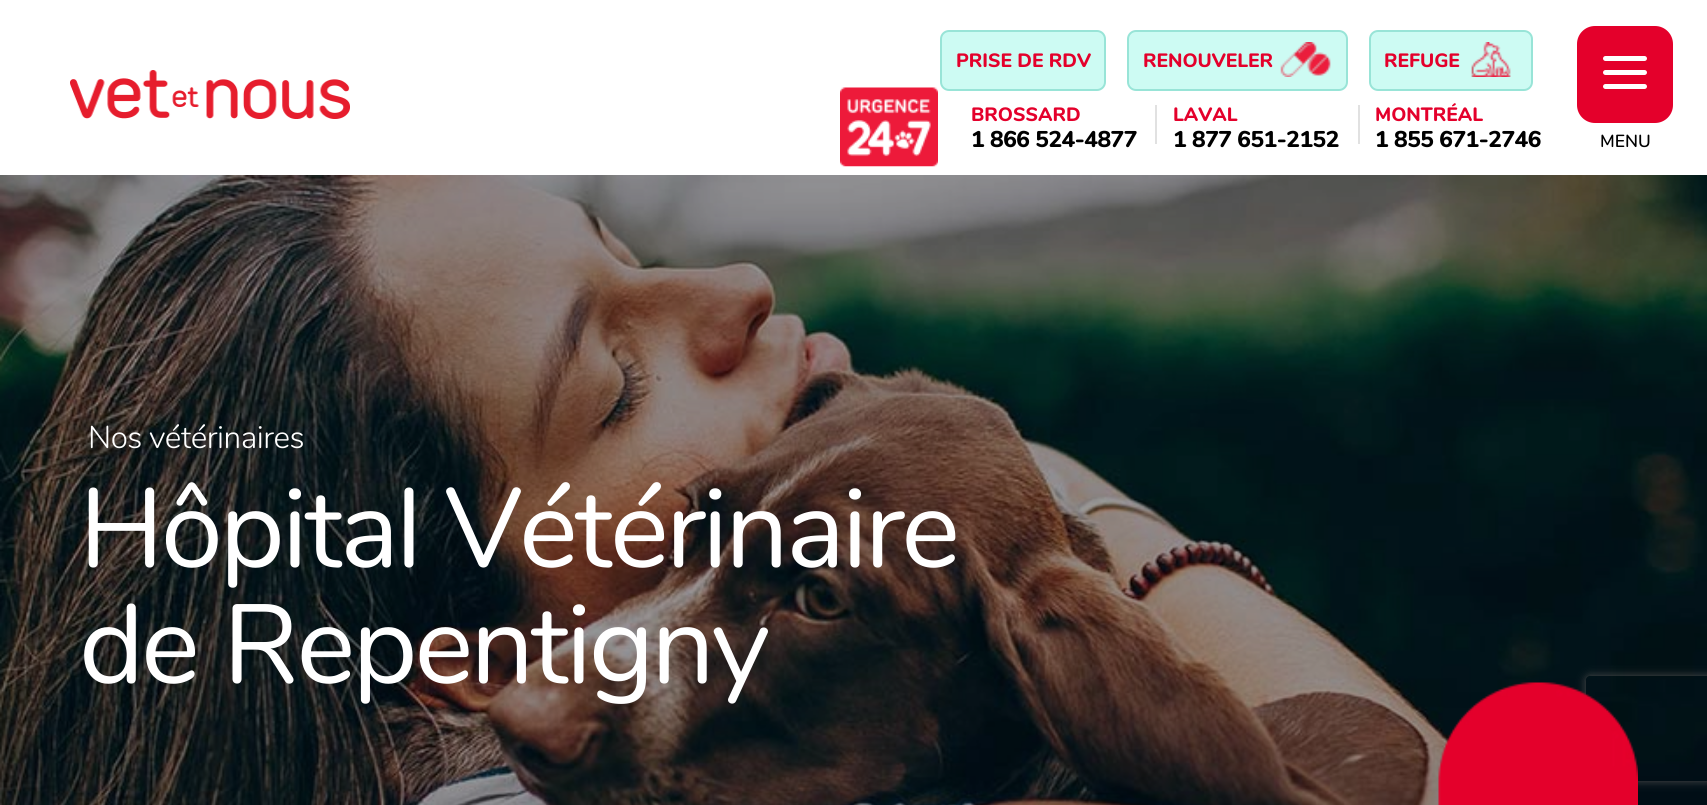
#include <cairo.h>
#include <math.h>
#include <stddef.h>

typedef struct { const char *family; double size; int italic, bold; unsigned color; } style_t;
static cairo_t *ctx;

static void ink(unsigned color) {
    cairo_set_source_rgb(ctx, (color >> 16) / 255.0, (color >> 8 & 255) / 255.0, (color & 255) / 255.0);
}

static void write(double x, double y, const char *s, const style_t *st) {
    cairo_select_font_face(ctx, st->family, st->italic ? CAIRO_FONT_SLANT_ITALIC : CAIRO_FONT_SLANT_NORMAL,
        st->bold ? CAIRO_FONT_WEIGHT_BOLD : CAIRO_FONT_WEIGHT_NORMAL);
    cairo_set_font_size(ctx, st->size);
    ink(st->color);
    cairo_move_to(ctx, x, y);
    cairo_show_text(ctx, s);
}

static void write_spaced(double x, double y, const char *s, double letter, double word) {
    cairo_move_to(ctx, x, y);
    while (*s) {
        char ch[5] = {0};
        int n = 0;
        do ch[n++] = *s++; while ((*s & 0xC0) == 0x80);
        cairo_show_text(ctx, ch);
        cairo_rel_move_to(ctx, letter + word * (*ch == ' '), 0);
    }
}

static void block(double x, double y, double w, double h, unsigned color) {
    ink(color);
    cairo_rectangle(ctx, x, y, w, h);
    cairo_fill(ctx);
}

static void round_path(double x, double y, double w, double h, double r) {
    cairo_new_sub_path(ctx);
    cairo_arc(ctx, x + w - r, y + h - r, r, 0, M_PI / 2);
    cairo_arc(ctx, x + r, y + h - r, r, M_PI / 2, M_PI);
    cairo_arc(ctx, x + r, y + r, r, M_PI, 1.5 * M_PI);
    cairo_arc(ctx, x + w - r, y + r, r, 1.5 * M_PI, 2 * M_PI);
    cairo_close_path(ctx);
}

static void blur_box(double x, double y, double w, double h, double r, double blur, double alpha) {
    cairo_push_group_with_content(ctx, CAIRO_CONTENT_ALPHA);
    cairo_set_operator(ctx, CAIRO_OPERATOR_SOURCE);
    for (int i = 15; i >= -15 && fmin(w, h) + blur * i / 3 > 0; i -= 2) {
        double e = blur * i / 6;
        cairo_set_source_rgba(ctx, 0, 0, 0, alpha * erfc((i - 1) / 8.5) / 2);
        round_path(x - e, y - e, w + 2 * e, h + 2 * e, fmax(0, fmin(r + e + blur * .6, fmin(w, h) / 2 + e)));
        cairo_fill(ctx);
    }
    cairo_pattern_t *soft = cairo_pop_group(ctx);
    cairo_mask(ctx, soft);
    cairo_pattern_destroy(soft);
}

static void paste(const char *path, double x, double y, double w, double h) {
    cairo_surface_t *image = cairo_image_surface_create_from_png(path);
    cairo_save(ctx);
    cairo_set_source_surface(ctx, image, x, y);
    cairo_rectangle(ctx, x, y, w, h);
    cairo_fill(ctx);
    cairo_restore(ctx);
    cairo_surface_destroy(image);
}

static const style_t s1 = {"Nunito ExtraBold", 19.25, 0, 0, 0xe4002b};
static const style_t s2 = {"Nunito SemiBold", 17.5, 0, 0, 0x000000};

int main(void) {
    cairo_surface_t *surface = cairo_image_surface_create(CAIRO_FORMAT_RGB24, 1707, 805);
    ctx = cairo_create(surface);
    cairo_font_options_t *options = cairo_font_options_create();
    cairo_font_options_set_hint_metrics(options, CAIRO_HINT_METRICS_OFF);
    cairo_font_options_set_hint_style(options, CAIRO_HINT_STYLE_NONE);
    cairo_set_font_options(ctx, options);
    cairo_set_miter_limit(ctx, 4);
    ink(0xffffff);
    cairo_paint(ctx);
    ink(0xcdfbf3);
    round_path(941, 31, 164, 59, 8);
    cairo_fill_preserve(ctx);
    ink(0x98e4d7);
    cairo_stroke(ctx);
    write(956, 67, "PRISE DE RDV", &s1);
    ink(0xcdfbf3);
    round_path(1128, 31, 219, 59, 8);
    cairo_fill_preserve(ctx);
    ink(0x98e4d7);
    cairo_stroke(ctx);
    write(1143, 67, "RENOUVELER", &s1);
    paste("pic1.png", 1280, 42, 51, 35);
    ink(0xcdfbf3);
    round_path(1370, 31, 162, 59, 8);
    cairo_fill_preserve(ctx);
    ink(0x98e4d7);
    cairo_stroke(ctx);
    write(1384, 67, "REFUGE", &s1);
    paste("pic2.png", 1471, 42, 40, 35);
    paste("pic3.png", 70, 70, 280, 49);
    paste("pic4.png", 840, 87, 98, 80);
    write(971, 121, "BROSSARD", &s1);
    cairo_set_font_size(ctx, 22.75);
    ink(0x000000);
    write_spaced(971, 147, "1 866 524-4877", -0.5, 0);
    block(1155, 105, 2, 39, 0xe1e1e1);
    write(1173, 121, "LAVAL", &s1);
    cairo_set_font_size(ctx, 22.75);
    ink(0x000000);
    write_spaced(1173, 147, "1 877 651-2152", -0.5, 0);
    block(1358, 105, 2, 39, 0xe1e1e1);
    write(1375, 121, "MONTRÉAL", &s1);
    cairo_set_font_size(ctx, 22.75);
    ink(0x000000);
    write_spaced(1375, 147, "1 855 671-2746", -0.5, 0);
    paste("pic5.png", 0, 175, 1707, 630);
    cairo_select_font_face(ctx, "Nunito Light", CAIRO_FONT_SLANT_NORMAL, CAIRO_FONT_WEIGHT_NORMAL);
    cairo_set_font_size(ctx, 31.5);
    ink(0xffffff);
    write_spaced(88, 448, "Nos vétérinaires", -0.5, 0);
    cairo_select_font_face(ctx, "Nunito", CAIRO_FONT_SLANT_NORMAL, CAIRO_FONT_WEIGHT_NORMAL);
    cairo_set_font_size(ctx, 112);
    write_spaced(79, 567, "Hôpital Vétérinaire", -3.1, 0);
    write_spaced(79, 683, "de Repentigny", -3.1, 0);
    cairo_save(ctx);
    cairo_set_fill_rule(ctx, CAIRO_FILL_RULE_EVEN_ODD);
    cairo_new_path(ctx);
    cairo_move_to(ctx, 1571, 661);
    cairo_line_to(ctx, 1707, 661);
    cairo_line_to(ctx, 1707, 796);
    cairo_line_to(ctx, 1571, 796);
    cairo_close_path(ctx);
    cairo_move_to(ctx, 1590, 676);
    cairo_line_to(ctx, 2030, 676);
    cairo_curve_to(ctx, 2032, 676, 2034, 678, 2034, 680);
    cairo_line_to(ctx, 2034, 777);
    cairo_curve_to(ctx, 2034, 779, 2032, 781, 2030, 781);
    cairo_line_to(ctx, 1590, 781);
    cairo_curve_to(ctx, 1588, 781, 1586, 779, 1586, 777);
    cairo_line_to(ctx, 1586, 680);
    cairo_curve_to(ctx, 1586, 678, 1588, 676, 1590, 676);
    cairo_close_path(ctx);
    cairo_clip(ctx);
    ink(0x4d4d4d);
    blur_box(1586, 676, 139, 105, 4, 4.5, 1);
    cairo_restore(ctx);
    paste("pic6.png", 1438, 682, 200, 123);
    ink(0xe4002b);
    round_path(1577, 26, 96, 97, 18);
    cairo_fill(ctx);
    ink(0xffffff);
    round_path(1603, 70, 44, 5, 2.5);
    cairo_fill(ctx);
    round_path(1603, 56, 44, 5, 2.5);
    cairo_fill(ctx);
    round_path(1603, 84, 44, 5, 2.5);
    cairo_fill(ctx);
    write(1600, 147, "MENU", &s2);
    cairo_surface_write_to_png(surface, "screenshot.png");
    cairo_font_options_destroy(options);
    cairo_destroy(ctx);
    cairo_surface_destroy(surface);
    return 0;
}
